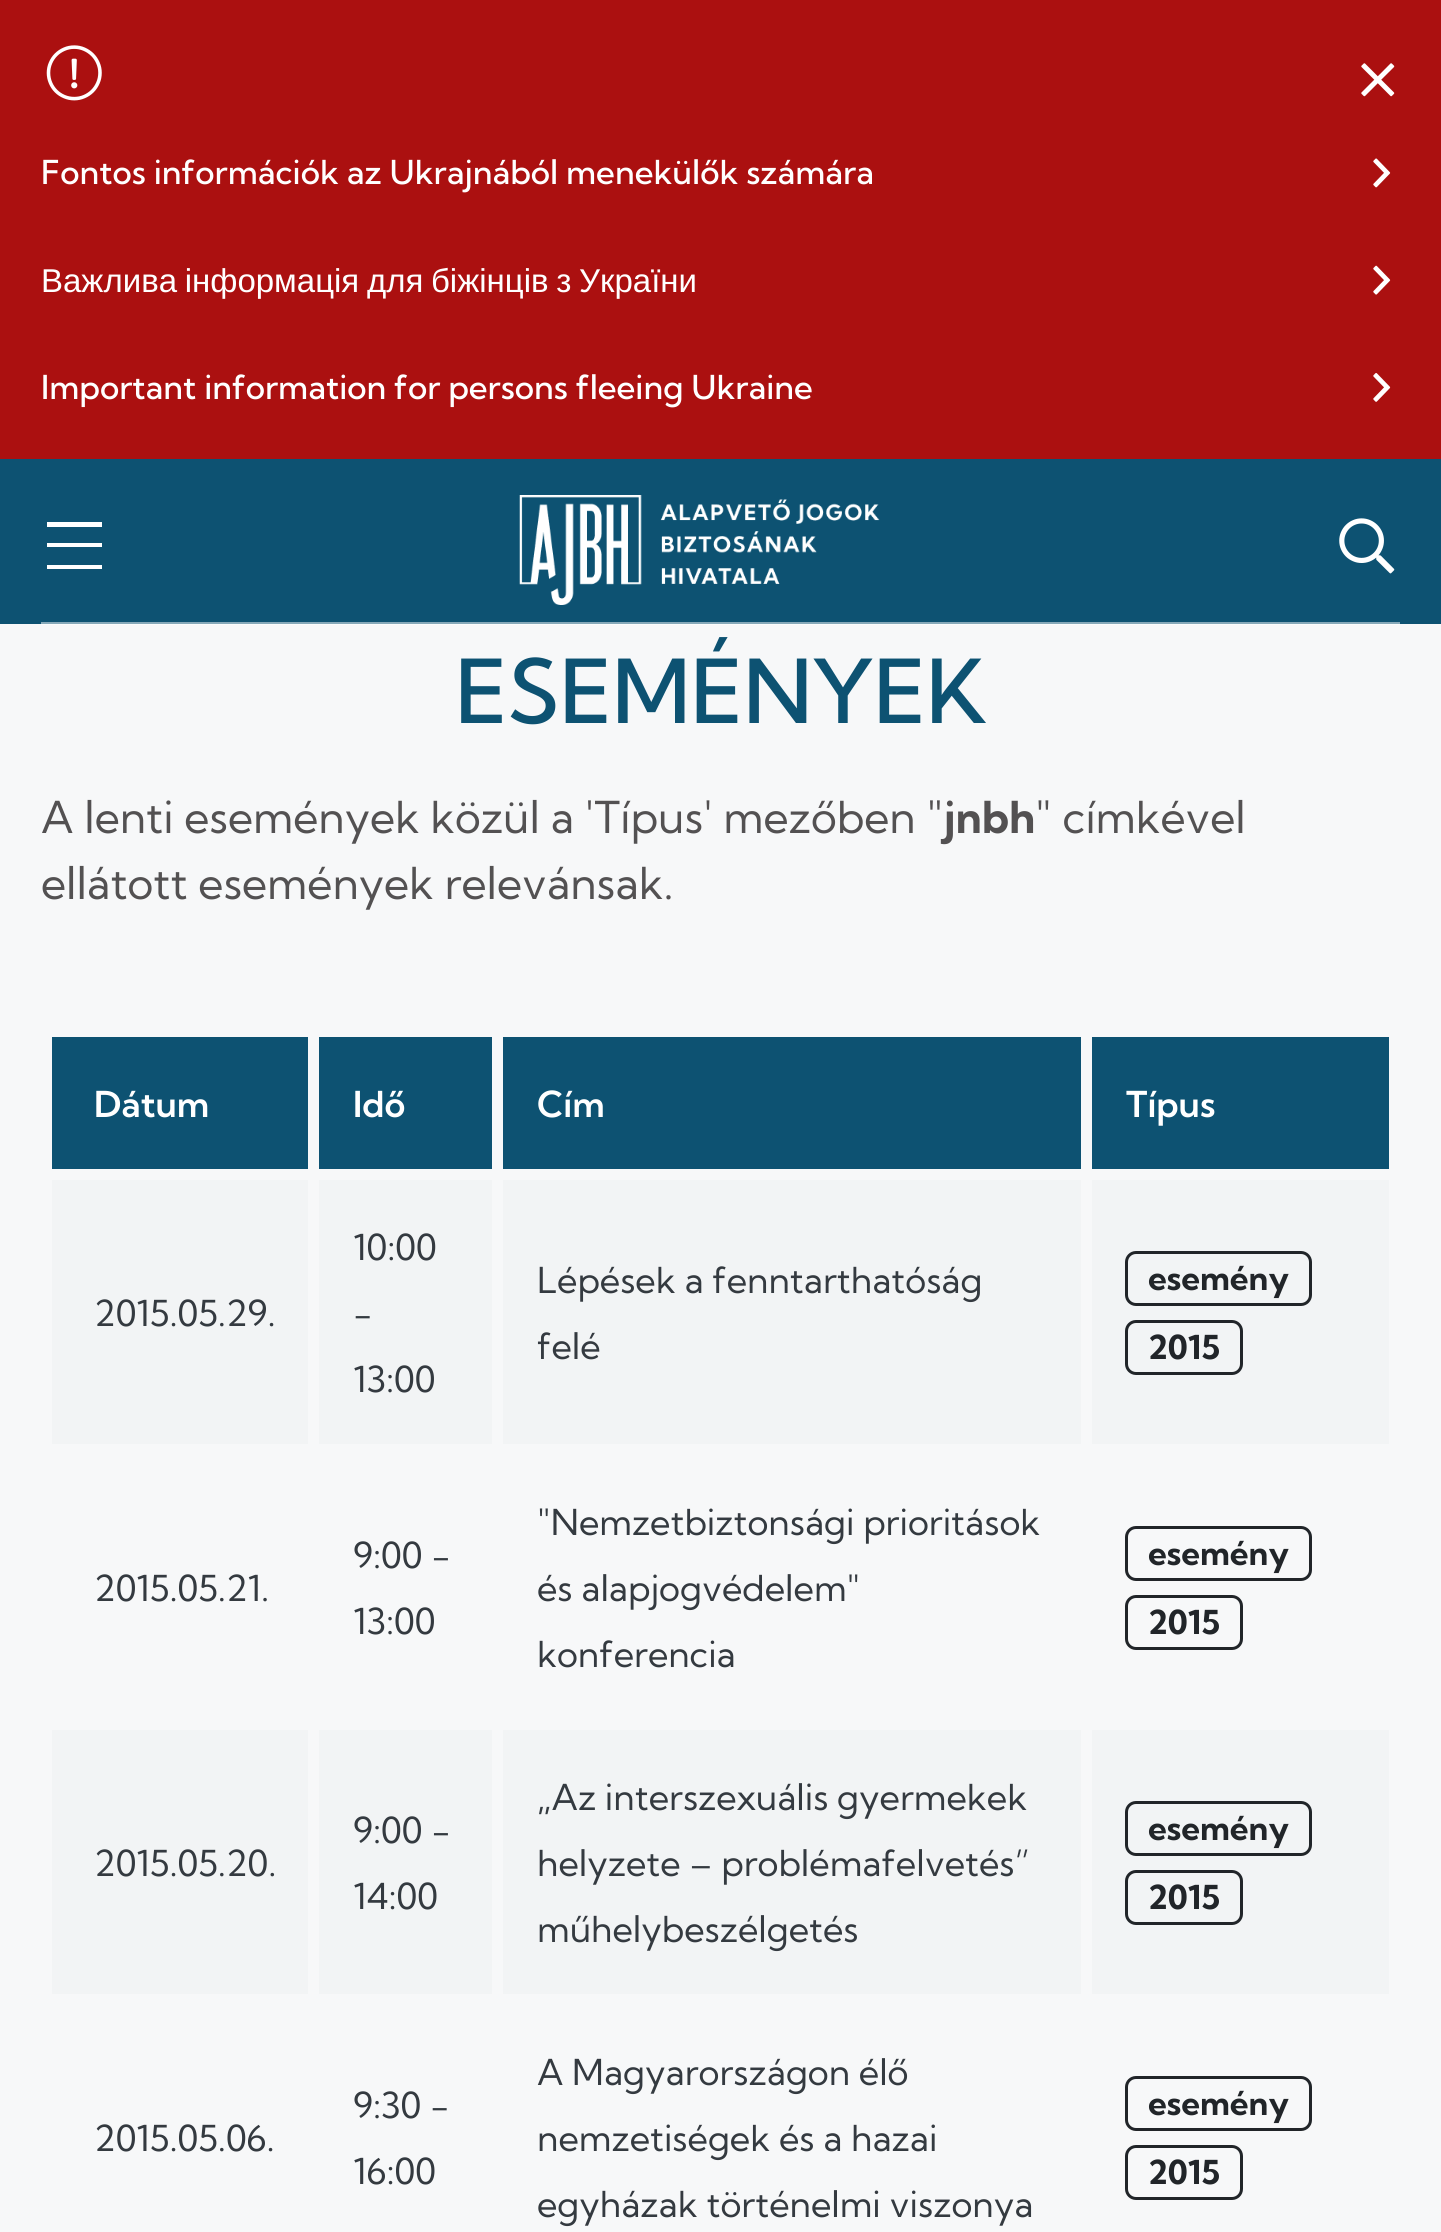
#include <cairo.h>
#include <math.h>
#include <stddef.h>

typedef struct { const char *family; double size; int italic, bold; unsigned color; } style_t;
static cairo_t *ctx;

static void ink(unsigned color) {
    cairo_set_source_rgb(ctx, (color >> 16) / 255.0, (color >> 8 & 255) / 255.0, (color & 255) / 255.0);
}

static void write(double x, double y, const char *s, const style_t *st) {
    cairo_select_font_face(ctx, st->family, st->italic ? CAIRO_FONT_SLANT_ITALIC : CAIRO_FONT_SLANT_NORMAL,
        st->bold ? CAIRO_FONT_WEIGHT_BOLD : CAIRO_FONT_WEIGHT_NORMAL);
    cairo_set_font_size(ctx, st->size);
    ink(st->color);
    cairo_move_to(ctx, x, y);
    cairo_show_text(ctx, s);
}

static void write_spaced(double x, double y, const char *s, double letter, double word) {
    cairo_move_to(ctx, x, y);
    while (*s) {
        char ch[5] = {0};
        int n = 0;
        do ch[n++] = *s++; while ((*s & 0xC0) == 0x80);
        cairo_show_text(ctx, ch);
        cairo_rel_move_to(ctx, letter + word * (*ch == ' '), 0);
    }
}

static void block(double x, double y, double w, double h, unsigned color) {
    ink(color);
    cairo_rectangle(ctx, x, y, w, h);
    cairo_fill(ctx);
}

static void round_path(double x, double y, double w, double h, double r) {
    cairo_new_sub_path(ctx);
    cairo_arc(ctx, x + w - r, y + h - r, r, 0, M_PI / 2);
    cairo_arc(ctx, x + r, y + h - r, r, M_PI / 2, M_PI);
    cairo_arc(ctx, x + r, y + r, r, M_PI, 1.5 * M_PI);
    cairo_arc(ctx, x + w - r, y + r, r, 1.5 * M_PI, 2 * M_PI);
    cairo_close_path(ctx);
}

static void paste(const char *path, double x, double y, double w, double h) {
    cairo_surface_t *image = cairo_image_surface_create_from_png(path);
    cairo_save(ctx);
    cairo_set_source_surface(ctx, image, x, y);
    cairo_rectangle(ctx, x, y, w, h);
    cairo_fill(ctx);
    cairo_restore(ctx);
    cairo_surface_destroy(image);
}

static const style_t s1 = {"Kumbh Sans Medium", 33, 0, 0, 0xffffff};
static const style_t s2 = {"Kumbh Sans Medium", 88, 0, 0, 0x0d5272};
static const style_t s3 = {"Kumbh Sans", 44, 0, 0, 0x535152};
static const style_t s4 = {"Kumbh Sans", 44, 0, 1, 0x535152};
static const style_t s5 = {"Kumbh Sans SemiBold", 35.75, 0, 0, 0xffffff};
static const style_t s6 = {"Kumbh Sans", 35.75, 0, 0, 0x343a40};
static const style_t s7 = {"Kumbh Sans", 33, 0, 1, 0x212529};

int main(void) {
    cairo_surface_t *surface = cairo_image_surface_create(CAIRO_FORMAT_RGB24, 1441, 2232);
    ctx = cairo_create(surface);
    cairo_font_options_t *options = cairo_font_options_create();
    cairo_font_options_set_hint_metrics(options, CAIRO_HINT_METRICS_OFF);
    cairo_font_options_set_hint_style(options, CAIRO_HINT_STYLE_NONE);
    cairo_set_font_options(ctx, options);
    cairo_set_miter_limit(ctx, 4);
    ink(0xf7f8f9);
    cairo_paint(ctx);
    block(41, 624, 1359, 1, 0xfbfcfc);
    block(0, 459, 1441, 165, 0x0d5272);
    block(41, 622, 1359, 2, 0x86a9b9);
    block(0, 0, 1441, 459, 0xab1010);
    paste("pic1.png", 1361, 63, 34, 34);
    paste("pic2.png", 46, 45, 56, 56);
    write(41, 184, "Fontos információk az Ukrajnából menekülők számára", &s1);
    paste("pic3.png", 1373, 158, 18, 30);
    cairo_select_font_face(ctx, "Liberation Sans", CAIRO_FONT_SLANT_NORMAL, CAIRO_FONT_WEIGHT_NORMAL);
    write_spaced(41, 292, "Важлива інформація для біжінців з України", 0, -1.5);
    paste("pic4.png", 1373, 265, 18, 30);
    write(41, 399, "Important information for persons fleeing Ukraine", &s1);
    paste("pic5.png", 1373, 373, 18, 29);
    cairo_new_path(ctx);
    cairo_move_to(ctx, 47, 522);
    cairo_line_to(ctx, 102, 522);
    cairo_line_to(ctx, 102, 527);
    cairo_line_to(ctx, 47, 527);
    cairo_close_path(ctx);
    cairo_move_to(ctx, 47, 543);
    cairo_line_to(ctx, 102, 543);
    cairo_line_to(ctx, 102, 547);
    cairo_line_to(ctx, 47, 547);
    cairo_close_path(ctx);
    cairo_move_to(ctx, 102, 565);
    cairo_line_to(ctx, 47, 565);
    cairo_line_to(ctx, 47, 569);
    cairo_line_to(ctx, 102, 569);
    cairo_close_path(ctx);
    cairo_fill(ctx);
    paste("pic6.png", 519, 495, 361, 110);
    paste("pic7.png", 1339, 518, 56, 56);
    write(455, 723, "ESEMÉNYEK", &s2);
    write(41, 833, "A lenti események közül a 'Típus' mezőben \"", &s3);
    write(944, 833, "jnbh", &s4);
    write(1035, 833, "\" címkével", &s3);
    write(41, 899, "ellátott események relevánsak.", &s3);
    block(52, 1037, 256, 132, 0x0d5272);
    write(94, 1117, "Dátum", &s5);
    block(319, 1037, 173, 132, 0x0d5272);
    write(353, 1117, "Idő", &s5);
    block(503, 1037, 578, 132, 0x0d5272);
    write(537, 1117, "Cím", &s5);
    block(1092, 1037, 297, 132, 0x0d5272);
    write(1126, 1117, "Típus", &s5);
    block(52, 1180, 256, 264, 0xf2f4f5);
    write(94, 1326, "2015.05.29.", &s6);
    block(319, 1180, 173, 264, 0xf2f4f5);
    write(353, 1260, "10:00", &s6);
    write(353, 1326, "-", &s6);
    write(353, 1392, "13:00", &s6);
    block(503, 1180, 578, 264, 0xf2f4f5);
    write(537, 1293, "Lépések a fenntarthatóság", &s6);
    write(537, 1359, "felé", &s6);
    block(1092, 1180, 297, 264, 0xf2f4f5);
    round_path(1126.5, 1252.5, 184, 52, 9.5);
    ink(0x212529);
    cairo_set_line_width(ctx, 3);
    cairo_stroke(ctx);
    write(1148, 1290, "esemény", &s7);
    round_path(1126.5, 1321.5, 115, 52, 9.5);
    cairo_stroke(ctx);
    write(1148, 1359, "2015", &s7);
    write(94, 1601, "2015.05.21.", &s6);
    write(353, 1568, "9:00 -", &s6);
    write(353, 1634, "13:00", &s6);
    write(537, 1535, "\"Nemzetbiztonsági prioritások", &s6);
    write(537, 1601, "és alapjogvédelem\"", &s6);
    write(537, 1667, "konferencia", &s6);
    round_path(1126.5, 1527.5, 184, 52, 9.5);
    ink(0x212529);
    cairo_stroke(ctx);
    write(1148, 1565, "esemény", &s7);
    round_path(1126.5, 1596.5, 115, 52, 9.5);
    cairo_stroke(ctx);
    write(1148, 1634, "2015", &s7);
    block(52, 1730, 256, 264, 0xf2f4f5);
    write(94, 1876, "2015.05.20.", &s6);
    block(319, 1730, 173, 264, 0xf2f4f5);
    write(353, 1843, "9:00 -", &s6);
    write(353, 1909, "14:00", &s6);
    block(503, 1730, 578, 264, 0xf2f4f5);
    write(537, 1810, "„Az interszexuális gyermekek", &s6);
    write(537, 1876, "helyzete – problémafelvetés”", &s6);
    write(537, 1942, "műhelybeszélgetés", &s6);
    block(1092, 1730, 297, 264, 0xf2f4f5);
    round_path(1126.5, 1802.5, 184, 52, 9.5);
    ink(0x212529);
    cairo_stroke(ctx);
    write(1148, 1840, "esemény", &s7);
    round_path(1126.5, 1871.5, 115, 52, 9.5);
    cairo_stroke(ctx);
    write(1148, 1909, "2015", &s7);
    write(94, 2151, "2015.05.06.", &s6);
    write(353, 2118, "9:30 -", &s6);
    write(353, 2184, "16:00", &s6);
    write(537, 2085, "A Magyarországon élő", &s6);
    write(537, 2151, "nemzetiségek és a hazai", &s6);
    write(537, 2217, "egyházak történelmi viszonya", &s6);
    round_path(1126.5, 2077.5, 184, 52, 9.5);
    ink(0x212529);
    cairo_stroke(ctx);
    write(1148, 2115, "esemény", &s7);
    round_path(1126.5, 2146.5, 115, 52, 9.5);
    cairo_stroke(ctx);
    write(1148, 2184, "2015", &s7);
    cairo_surface_write_to_png(surface, "screenshot.png");
    cairo_font_options_destroy(options);
    cairo_destroy(ctx);
    cairo_surface_destroy(surface);
    return 0;
}
